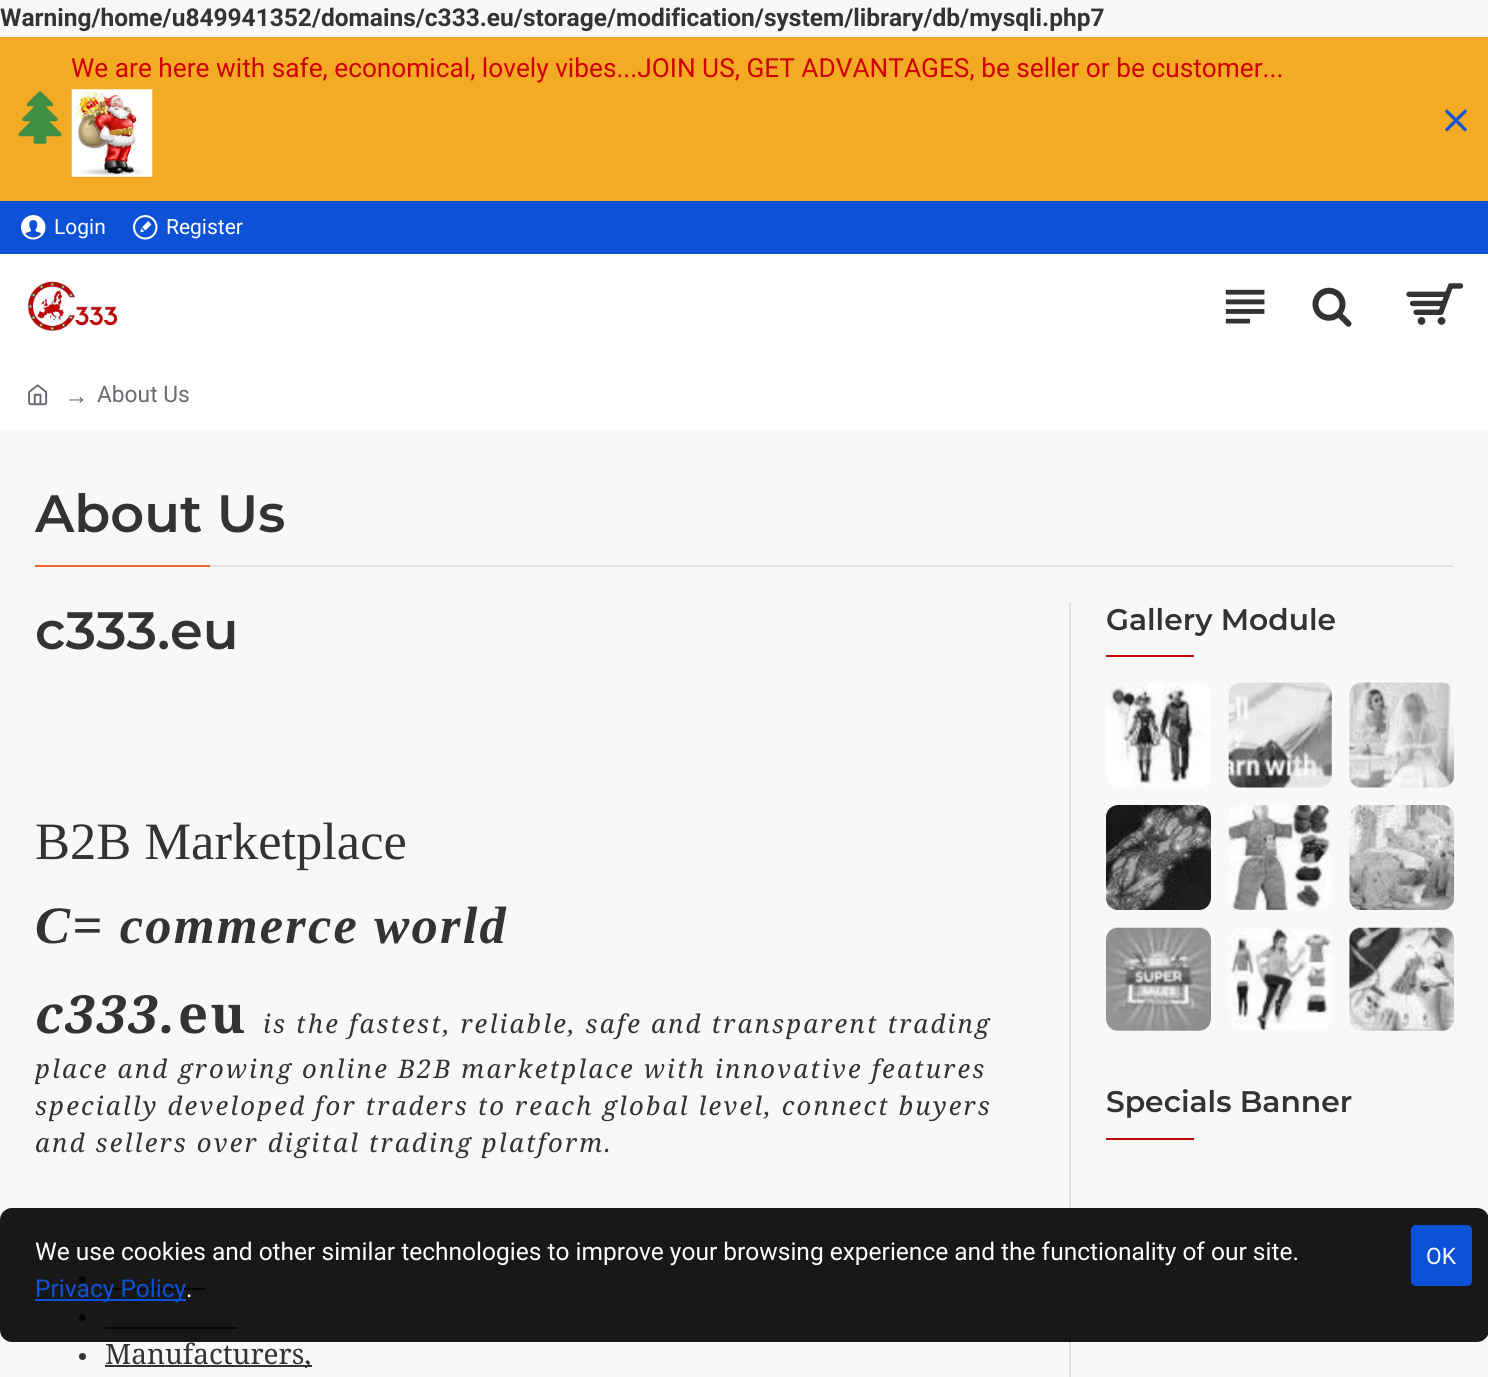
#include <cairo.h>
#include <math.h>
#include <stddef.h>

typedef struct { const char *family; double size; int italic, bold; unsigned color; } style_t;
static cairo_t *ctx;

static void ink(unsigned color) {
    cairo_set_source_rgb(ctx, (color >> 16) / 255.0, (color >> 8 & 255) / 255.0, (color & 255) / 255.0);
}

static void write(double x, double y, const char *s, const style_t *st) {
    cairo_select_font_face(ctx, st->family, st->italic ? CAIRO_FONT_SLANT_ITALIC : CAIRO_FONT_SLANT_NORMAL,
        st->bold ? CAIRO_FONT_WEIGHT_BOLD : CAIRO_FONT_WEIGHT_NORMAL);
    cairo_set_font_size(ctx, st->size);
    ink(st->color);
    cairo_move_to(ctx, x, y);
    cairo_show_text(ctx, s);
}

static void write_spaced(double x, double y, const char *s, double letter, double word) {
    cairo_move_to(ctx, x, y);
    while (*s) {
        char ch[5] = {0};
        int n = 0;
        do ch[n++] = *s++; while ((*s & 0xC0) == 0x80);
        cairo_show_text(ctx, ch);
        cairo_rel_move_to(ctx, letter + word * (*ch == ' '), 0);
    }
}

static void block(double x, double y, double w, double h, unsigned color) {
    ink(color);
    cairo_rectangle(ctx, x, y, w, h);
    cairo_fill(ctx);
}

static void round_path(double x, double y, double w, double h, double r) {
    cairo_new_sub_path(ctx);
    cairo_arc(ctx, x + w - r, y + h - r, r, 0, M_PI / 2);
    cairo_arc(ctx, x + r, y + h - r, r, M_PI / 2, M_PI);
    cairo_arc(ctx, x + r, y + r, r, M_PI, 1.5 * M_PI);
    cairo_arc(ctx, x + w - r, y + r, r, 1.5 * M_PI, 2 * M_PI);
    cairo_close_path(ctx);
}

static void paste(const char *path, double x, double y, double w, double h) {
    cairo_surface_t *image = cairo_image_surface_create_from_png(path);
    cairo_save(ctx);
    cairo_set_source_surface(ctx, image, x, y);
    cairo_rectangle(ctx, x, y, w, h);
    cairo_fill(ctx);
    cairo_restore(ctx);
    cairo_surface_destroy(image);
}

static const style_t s1 = {"Roboto", 24.5, 0, 1, 0x333333};
static const style_t s2 = {"Roboto", 26.25, 0, 0, 0xce0000};
static const style_t s3 = {"Roboto", 21, 0, 0, 0xffffff};
static const style_t s4 = {"Liberation Serif", 24.5, 0, 0, 0x696973};
static const style_t s5 = {"Roboto", 22.75, 0, 0, 0x696973};
static const style_t s6 = {"Montserrat SemiBold", 52.5, 0, 0, 0x333333};
static const style_t s7 = {"Liberation Serif", 52.5, 0, 0, 0x333333};
static const style_t s8 = {"Noto Serif", 28, 0, 0, 0x333333};
static const style_t s9 = {"Montserrat SemiBold", 29.75, 0, 0, 0x333333};
static const style_t s10 = {"Roboto", 24.5, 0, 0, 0xffffff};
static const style_t s11 = {"Roboto", 24.5, 0, 0, 0x0d52d6};
static const style_t s12 = {"Roboto", 22.75, 0, 0, 0xffffff};

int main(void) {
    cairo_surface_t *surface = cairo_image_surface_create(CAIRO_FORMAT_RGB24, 1488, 1377);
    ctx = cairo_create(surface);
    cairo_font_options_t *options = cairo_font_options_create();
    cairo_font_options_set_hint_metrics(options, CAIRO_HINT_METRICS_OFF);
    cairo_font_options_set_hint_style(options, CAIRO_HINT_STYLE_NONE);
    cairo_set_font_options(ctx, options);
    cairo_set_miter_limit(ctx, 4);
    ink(0xf8f8f8);
    cairo_paint(ctx);
    write(0, 26, "Warning/home/u849941352/domains/c333.eu/storage/modification/system/library/db/mysqli.php7", &s1);
    block(0, 37, 1488, 164, 0xf3ab25);
    write(71, 77, "We are here with safe, economical, lovely vibes...JOIN US, GET ADVANTAGES, be seller or be customer...", &s2);
    paste("pic1.png", 71, 89, 82, 88);
    paste("pic2.png", 18, 91, 44, 53);
    paste("pic3.png", 1444, 109, 24, 23);
    block(0, 201, 1488, 53, 0x0d52d6);
    paste("pic4.png", 21, 215, 25, 25);
    write(54, 234, "Login", &s3);
    paste("pic5.png", 133, 215, 25, 25);
    write(166, 234, "Register", &s3);
    block(0, 254, 1488, 177, 0xffffff);
    paste("pic6.png", 27, 281, 91, 50);
    paste("pic7.png", 1225, 289, 40, 35);
    paste("pic8.png", 1312, 287, 40, 40);
    paste("pic9.png", 1406, 283, 58, 42);
    paste("pic10.png", 28, 384, 20, 22);
    write(64, 404, "→", &s4);
    write(97, 402, "About Us", &s5);
    block(210, 565, 1244, 2, 0xe2e2e2);
    write(35, 532, "About Us", &s6);
    block(35, 565, 175, 2, 0xe96631);
    write(35, 649, "c333.eu", &s6);
    write(35, 859, "B2B Marketplace", &s7);
    cairo_select_font_face(ctx, "Liberation Serif", CAIRO_FONT_SLANT_ITALIC, CAIRO_FONT_WEIGHT_BOLD);
    write_spaced(35, 943, "C= commerce world", 2.22, 0);
    cairo_select_font_face(ctx, "Noto Serif", CAIRO_FONT_SLANT_ITALIC, CAIRO_FONT_WEIGHT_BOLD);
    write_spaced(35, 1033, "c333.", 2.22, 0);
    cairo_select_font_face(ctx, "Noto Serif", CAIRO_FONT_SLANT_NORMAL, CAIRO_FONT_WEIGHT_BOLD);
    write_spaced(178, 1033, "eu", 2.22, 0);
    cairo_select_font_face(ctx, "Noto Serif", CAIRO_FONT_SLANT_ITALIC, CAIRO_FONT_WEIGHT_NORMAL);
    cairo_set_font_size(ctx, 25.65);
    write_spaced(263, 1033, "is the fastest, reliable, safe and transparent trading", 2.22, 0);
    write_spaced(35, 1078, "place and growing online B2B marketplace with innovative features", 2.22, 0);
    write_spaced(35, 1115, "specially developed for traders to reach global level, connect buyers", 2.22, 0);
    write_spaced(35, 1152, "and sellers over digital trading platform.", 2.22, 0);
    cairo_new_path(ctx);
    cairo_arc(ctx, 82.5, 1279.5, 3.5, 0, 2 * M_PI);
    cairo_fill(ctx);
    block(105, 1288, 100, 2, 0x333333);
    cairo_arc(ctx, 82.5, 1317.5, 3.5, 0, 2 * M_PI);
    cairo_fill(ctx);
    block(105, 1327, 133, 2, 0x333333);
    cairo_arc(ctx, 82.5, 1356.5, 3.5, 0, 2 * M_PI);
    cairo_fill(ctx);
    block(105, 1365, 207, 2, 0x333333);
    write(105, 1364, "Manufacturers,", &s8);
    block(1069, 602, 2, 775, 0xe2e2e2);
    write(1106, 630, "Gallery Module", &s9);
    block(1106, 655, 88, 2, 0xbf0404);
    paste("pic11.png", 1106, 683, 105, 104);
    paste("pic12.png", 1228, 682, 104, 106);
    paste("pic13.png", 1349, 682, 106, 106);
    paste("pic14.png", 1106, 805, 105, 105);
    paste("pic15.png", 1228, 805, 104, 105);
    paste("pic16.png", 1349, 805, 106, 105);
    paste("pic17.png", 1106, 927, 105, 104);
    paste("pic18.png", 1229, 928, 103, 103);
    paste("pic19.png", 1349, 927, 106, 104);
    write(1106, 1112, "Specials Banner", &s9);
    block(1106, 1138, 88, 2, 0xbf0404);
    cairo_set_source_rgba(ctx, 0, 0, 0, 0.9);
    round_path(0, 1208, 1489, 134, 12);
    cairo_fill(ctx);
    write(35, 1260, "We use cookies and other similar technologies to improve your browsing experience and the functionality of our site.", &s10);
    block(35, 1299, 151, 2, 0x0d52d6);
    write(35, 1297, "Privacy Policy", &s11);
    write(186, 1297, ".", &s10);
    ink(0x0d52d6);
    round_path(1411, 1225, 61, 61, 5);
    cairo_fill(ctx);
    write(1426, 1264, "OK", &s12);
    cairo_surface_write_to_png(surface, "screenshot.png");
    cairo_font_options_destroy(options);
    cairo_destroy(ctx);
    cairo_surface_destroy(surface);
    return 0;
}
